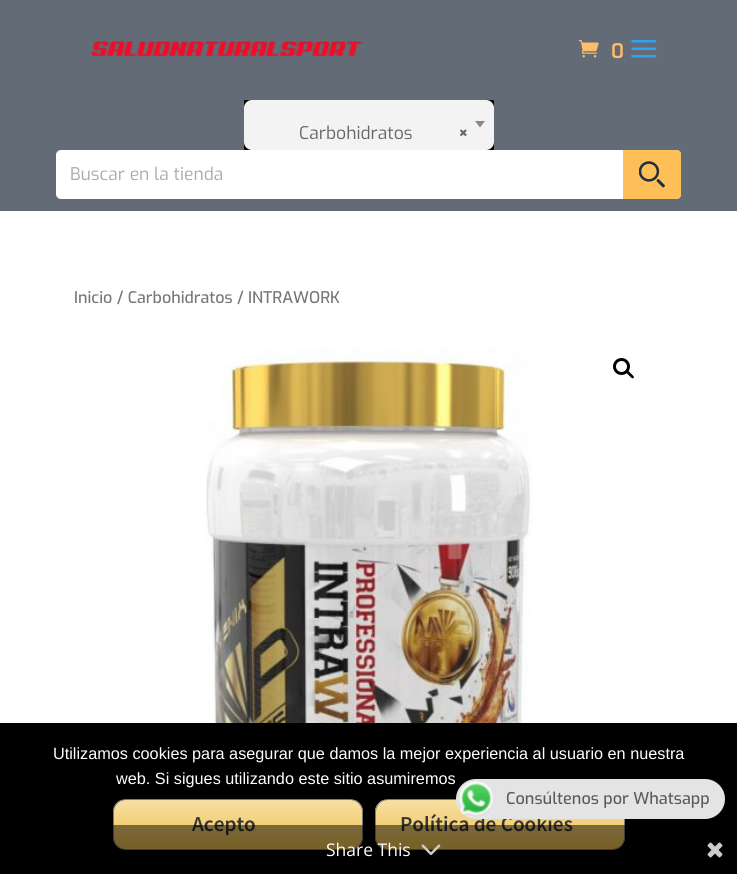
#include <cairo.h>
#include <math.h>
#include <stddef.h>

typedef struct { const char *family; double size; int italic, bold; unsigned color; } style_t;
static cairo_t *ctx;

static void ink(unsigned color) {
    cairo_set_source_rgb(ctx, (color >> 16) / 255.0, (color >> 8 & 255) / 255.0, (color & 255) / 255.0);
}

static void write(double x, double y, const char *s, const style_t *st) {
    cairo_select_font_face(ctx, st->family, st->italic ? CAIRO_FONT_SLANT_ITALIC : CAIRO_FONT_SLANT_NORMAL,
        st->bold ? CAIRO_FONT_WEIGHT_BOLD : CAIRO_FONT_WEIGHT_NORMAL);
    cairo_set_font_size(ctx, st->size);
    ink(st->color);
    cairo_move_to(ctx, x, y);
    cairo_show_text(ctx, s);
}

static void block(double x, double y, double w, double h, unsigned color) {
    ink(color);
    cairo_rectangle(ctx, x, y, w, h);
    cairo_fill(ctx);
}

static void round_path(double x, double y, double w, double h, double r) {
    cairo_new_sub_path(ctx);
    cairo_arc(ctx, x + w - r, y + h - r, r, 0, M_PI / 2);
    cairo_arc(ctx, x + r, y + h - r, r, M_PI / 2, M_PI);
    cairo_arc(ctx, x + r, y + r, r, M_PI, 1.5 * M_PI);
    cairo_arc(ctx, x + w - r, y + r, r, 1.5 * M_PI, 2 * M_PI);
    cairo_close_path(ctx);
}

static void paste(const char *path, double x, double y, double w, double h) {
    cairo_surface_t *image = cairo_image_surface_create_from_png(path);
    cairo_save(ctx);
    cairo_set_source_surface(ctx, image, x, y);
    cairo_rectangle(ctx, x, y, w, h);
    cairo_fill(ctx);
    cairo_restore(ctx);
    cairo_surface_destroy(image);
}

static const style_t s1 = {"Exo SemiBold", 20, 0, 0, 0xfebd69};
static const style_t s2 = {"Exo", 17.5, 0, 0, 0x666666};
static const style_t s3 = {"Exo", 17.5, 0, 1, 0x666666};
static const style_t s4 = {"Exo", 17.5, 0, 0, 0xaaaaaa};
static const style_t s5 = {"Exo Medium", 16.1, 0, 0, 0x767676};
static const style_t s6 = {"Liberation Sans", 16.25, 0, 0, 0xffffff};
static const style_t s7 = {"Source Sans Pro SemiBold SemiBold", 21.25, 0, 0, 0x353535};
static const style_t s8 = {"Exo Medium", 16.25, 0, 0, 0x5b5b5b};
static const style_t s9 = {"Open Sans", 17.5, 0, 0, 0xffffff};

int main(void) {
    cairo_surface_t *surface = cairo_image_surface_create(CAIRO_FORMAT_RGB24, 737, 874);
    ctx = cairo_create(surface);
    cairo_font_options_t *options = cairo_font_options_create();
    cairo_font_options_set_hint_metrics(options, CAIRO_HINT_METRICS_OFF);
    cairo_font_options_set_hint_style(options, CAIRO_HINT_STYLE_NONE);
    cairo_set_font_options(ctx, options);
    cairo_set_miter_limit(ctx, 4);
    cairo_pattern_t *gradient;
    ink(0xffffff);
    cairo_paint(ctx);
    block(0, 0, 737, 211, 0x636b76);
    paste("pic1.png", 91, 41, 272, 16);
    paste("pic2.png", 578, 40, 21, 18);
    write(611, 58, "0", &s1);
    paste("pic3.png", 631, 40, 26, 18);
    ink(0x000000);
    round_path(244, 100, 250, 50, 1);
    cairo_fill(ctx);
    ink(0xf3f3f3);
    round_path(244, 100, 250, 50, 8);
    cairo_fill(ctx);
    write(299, 139, "Carbohidratos", &s2);
    write(458, 139, "×", &s3);
    ink(0x888888);
    cairo_new_path(ctx);
    cairo_move_to(ctx, 475, 121);
    cairo_line_to(ctx, 485, 121);
    cairo_line_to(ctx, 480, 127.5);
    cairo_close_path(ctx);
    cairo_fill(ctx);
    ink(0xffffff);
    round_path(56.5, 150.5, 624, 48, 4.5);
    cairo_fill_preserve(ctx);
    cairo_set_line_width(ctx, 1);
    cairo_stroke(ctx);
    write(70, 180, "Buscar en la tienda", &s4);
    ink(0xffbf58);
    cairo_new_path(ctx);
    cairo_move_to(ctx, 623, 150);
    cairo_line_to(ctx, 677, 150);
    cairo_curve_to(ctx, 679, 150, 681, 152, 681, 154);
    cairo_line_to(ctx, 681, 195);
    cairo_curve_to(ctx, 681, 197, 679, 199, 677, 199);
    cairo_line_to(ctx, 623, 199);
    cairo_close_path(ctx);
    cairo_fill(ctx);
    paste("pic4.png", 639, 161, 26, 27);
    write(74, 303, "Inicio / Carbohidratos / INTRAWORK", &s5);
    paste("pic5.png", 205, 347, 328, 376);
    cairo_arc(ctx, 621.5, 366.5, 7, 0, 2 * M_PI);
    ink(0x000000);
    cairo_set_line_width(ctx, 3);
    cairo_stroke(ctx);
    cairo_new_path(ctx);
    cairo_move_to(ctx, 626.5, 371);
    cairo_curve_to(ctx, 628, 369.5, 630, 373, 631, 373.5);
    cairo_curve_to(ctx, 631.5, 374.5, 635, 376.5, 633.5, 378);
    cairo_curve_to(ctx, 632, 379.5, 630, 376, 629, 375.5);
    cairo_curve_to(ctx, 628.5, 374.5, 625, 372.5, 626.5, 371);
    cairo_close_path(ctx);
    cairo_fill(ctx);
    block(0, 723, 737, 151, 0x000000);
    write(53, 759, "Utilizamos cookies para asegurar que damos la mejor experiencia al usuario en nuestra", &s6);
    write(116, 784, "web. Si sigues utilizando este sitio asumiremos", &s6);
    cairo_save(ctx);
    round_path(113, 799, 250, 51, 13);
    cairo_clip(ctx);
    gradient = cairo_pattern_create_linear(238, 800, 238, 849);
    cairo_pattern_add_color_stop_rgba(gradient, 0, 0.969, 0.875, 0.647, 1);
    cairo_pattern_add_color_stop_rgba(gradient, 1, 0.941, 0.757, 0.294, 1);
    cairo_set_source(ctx, gradient);
    cairo_pattern_destroy(gradient);
    cairo_rectangle(ctx, 113, 800, 250, 49);
    cairo_fill(ctx);
    cairo_restore(ctx);
    round_path(113.5, 799.5, 249, 50, 12.5);
    ink(0x7a7a7a);
    cairo_set_line_width(ctx, 1);
    cairo_stroke(ctx);
    write(192, 831, "Acepto", &s7);
    cairo_save(ctx);
    round_path(375, 799, 250, 51, 13);
    cairo_clip(ctx);
    gradient = cairo_pattern_create_linear(500, 800, 500, 849);
    cairo_pattern_add_color_stop_rgba(gradient, 0, 0.969, 0.875, 0.647, 1);
    cairo_pattern_add_color_stop_rgba(gradient, 1, 0.941, 0.757, 0.294, 1);
    cairo_set_source(ctx, gradient);
    cairo_pattern_destroy(gradient);
    cairo_rectangle(ctx, 375, 800, 250, 49);
    cairo_fill(ctx);
    cairo_restore(ctx);
    round_path(375.5, 799.5, 249, 50, 12.5);
    ink(0x7a7a7a);
    cairo_stroke(ctx);
    write(400, 831, "Política de Cookies", &s7);
    ink(0xe4e4e4);
    round_path(456, 779, 269, 40, 20);
    cairo_fill(ctx);
    paste("pic6.png", 459, 781, 35, 36);
    write(506, 804, "Consúltenos por Whatsapp", &s8);
    cairo_set_source_rgba(ctx, 0, 0, 0, 0.5);
    cairo_rectangle(ctx, 113, 825, 512, 25);
    cairo_fill(ctx);
    write(326, 856, "Share This", &s9);
    paste("pic7.png", 421, 844, 20, 12);
    paste("pic8.png", 707, 842, 16, 16);
    cairo_surface_write_to_png(surface, "screenshot.png");
    cairo_font_options_destroy(options);
    cairo_destroy(ctx);
    cairo_surface_destroy(surface);
    return 0;
}
